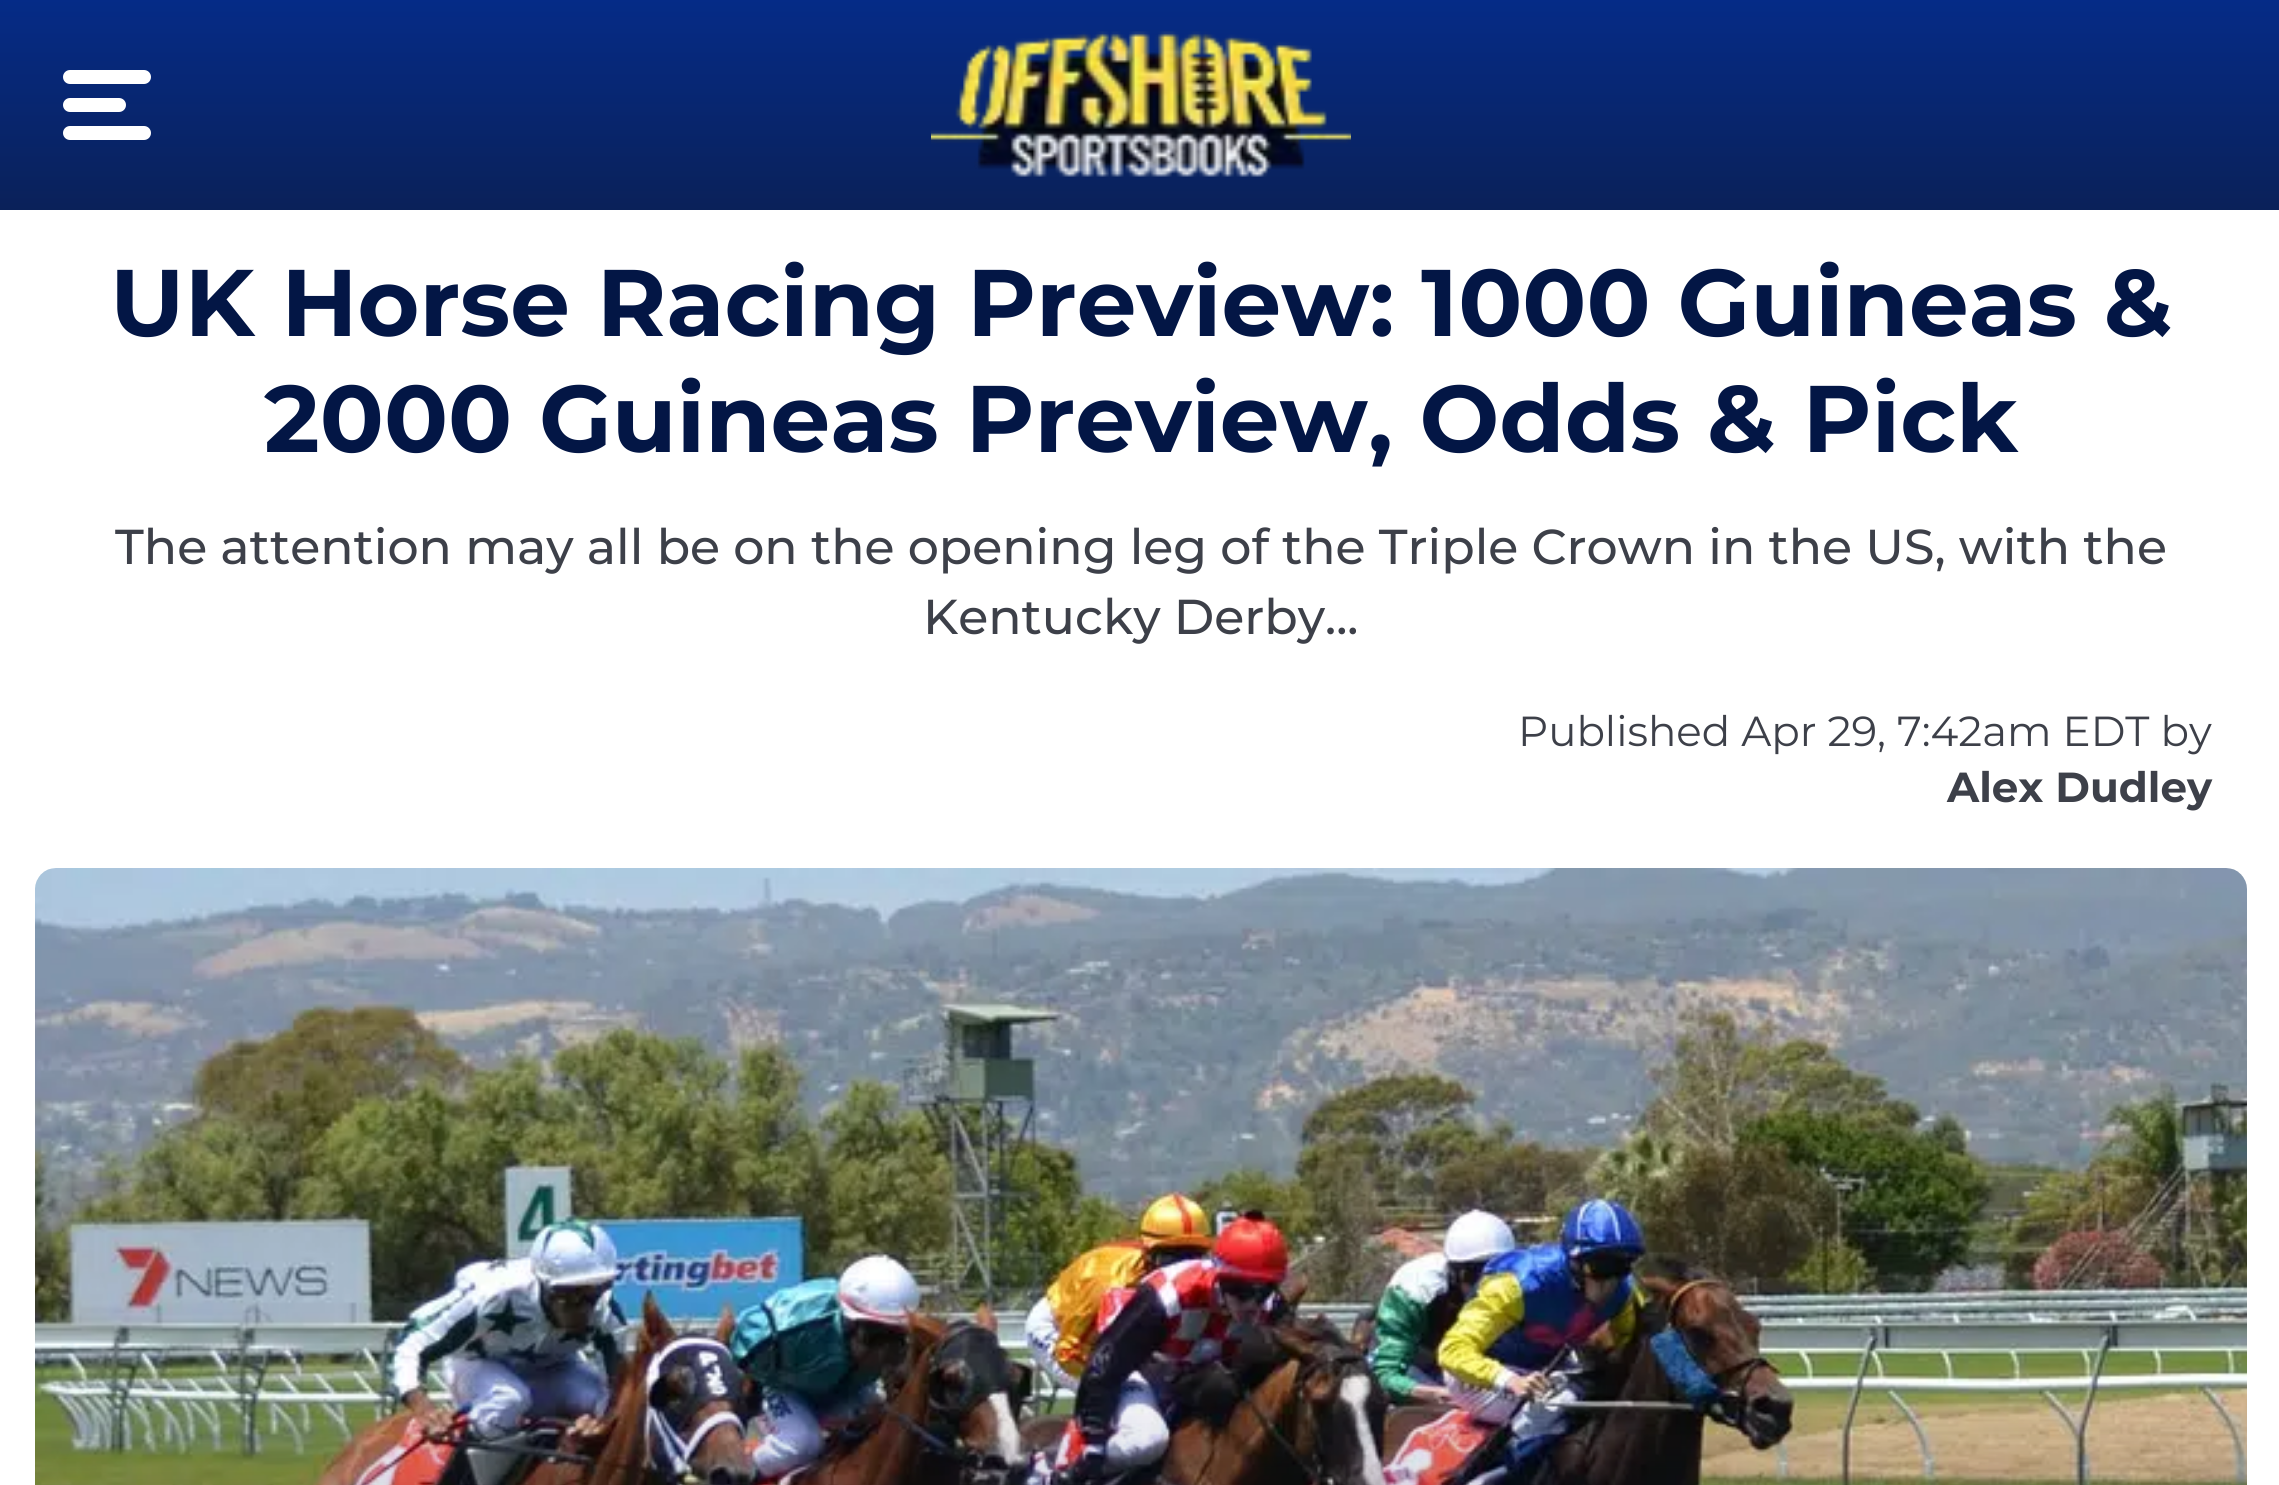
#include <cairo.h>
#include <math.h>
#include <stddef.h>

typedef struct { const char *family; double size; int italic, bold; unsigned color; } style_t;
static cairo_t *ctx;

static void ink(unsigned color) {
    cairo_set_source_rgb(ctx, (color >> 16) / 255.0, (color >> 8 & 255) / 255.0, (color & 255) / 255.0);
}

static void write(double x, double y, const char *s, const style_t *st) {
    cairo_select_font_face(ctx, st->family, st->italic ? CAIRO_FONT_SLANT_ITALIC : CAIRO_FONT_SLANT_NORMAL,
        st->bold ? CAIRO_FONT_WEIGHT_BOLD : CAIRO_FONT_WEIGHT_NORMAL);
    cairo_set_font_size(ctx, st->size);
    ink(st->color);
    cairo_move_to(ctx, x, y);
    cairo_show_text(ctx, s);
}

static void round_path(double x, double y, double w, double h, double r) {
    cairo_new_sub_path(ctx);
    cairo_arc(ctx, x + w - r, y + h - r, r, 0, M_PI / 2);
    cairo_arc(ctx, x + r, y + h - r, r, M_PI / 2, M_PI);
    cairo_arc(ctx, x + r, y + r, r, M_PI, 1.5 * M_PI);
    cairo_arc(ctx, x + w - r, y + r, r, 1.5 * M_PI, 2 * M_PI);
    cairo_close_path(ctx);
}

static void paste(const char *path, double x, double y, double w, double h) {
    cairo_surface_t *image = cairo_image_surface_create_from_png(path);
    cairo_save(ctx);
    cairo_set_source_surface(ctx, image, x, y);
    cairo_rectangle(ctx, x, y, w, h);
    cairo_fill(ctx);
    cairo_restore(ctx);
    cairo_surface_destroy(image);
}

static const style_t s1 = {"Montserrat", 94.5, 0, 1, 0x031645};
static const style_t s2 = {"Montserrat Medium", 49, 0, 0, 0x3d4049};
static const style_t s3 = {"Montserrat", 42, 0, 0, 0x3d4049};
static const style_t s4 = {"Montserrat", 42, 0, 1, 0x3d4049};

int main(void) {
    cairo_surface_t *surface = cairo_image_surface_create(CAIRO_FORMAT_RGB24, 2279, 1485);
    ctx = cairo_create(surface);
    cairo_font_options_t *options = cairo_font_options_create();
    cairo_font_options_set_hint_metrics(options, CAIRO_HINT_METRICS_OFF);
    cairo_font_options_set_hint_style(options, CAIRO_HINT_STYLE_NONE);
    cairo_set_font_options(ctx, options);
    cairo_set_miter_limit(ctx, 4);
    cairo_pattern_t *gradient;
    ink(0xffffff);
    cairo_paint(ctx);
    gradient = cairo_pattern_create_linear(1141, 0, 1141, 210);
    cairo_pattern_add_color_stop_rgba(gradient, 0, 0.02, 0.169, 0.529, 1);
    cairo_pattern_add_color_stop_rgba(gradient, 1, 0.039, 0.129, 0.349, 1);
    cairo_set_source(ctx, gradient);
    cairo_pattern_destroy(gradient);
    cairo_rectangle(ctx, 0, 0, 2279, 210);
    cairo_fill(ctx);
    ink(0xffffff);
    round_path(63, 70, 88, 14, 7);
    cairo_fill(ctx);
    round_path(63, 98, 63, 14, 7);
    cairo_fill(ctx);
    round_path(63, 126, 88, 14, 7);
    cairo_fill(ctx);
    paste("pic1.png", 931, 31, 420, 146);
    write(110, 336, "UK Horse Racing Preview: 1000 Guineas &", &s1);
    write(264, 452, "2000 Guineas Preview, Odds & Pick", &s1);
    write(115, 564, "The attention may all be on the opening leg of the Triple Crown in the US, with the", &s2);
    write(923, 634, "Kentucky Derby...", &s2);
    write(1518, 746, "Published Apr 29, 7:42am EDT by", &s3);
    write(1947, 802, "Alex Dudley", &s4);
    paste("pic2.png", 35, 868, 2212, 617);
    gradient = cairo_pattern_create_linear(1141, 868, 1141, 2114);
    cairo_pattern_add_color_stop_rgba(gradient, 0.4, 0.012, 0.086, 0.271, 0);
    cairo_pattern_add_color_stop_rgba(gradient, 1, 0.012, 0.086, 0.271, 0.85);
    cairo_set_source(ctx, gradient);
    cairo_pattern_destroy(gradient);
    cairo_rectangle(ctx, 35, 1385, 2212, 100);
    cairo_fill(ctx);
    cairo_surface_write_to_png(surface, "screenshot.png");
    cairo_font_options_destroy(options);
    cairo_destroy(ctx);
    cairo_surface_destroy(surface);
    return 0;
}
